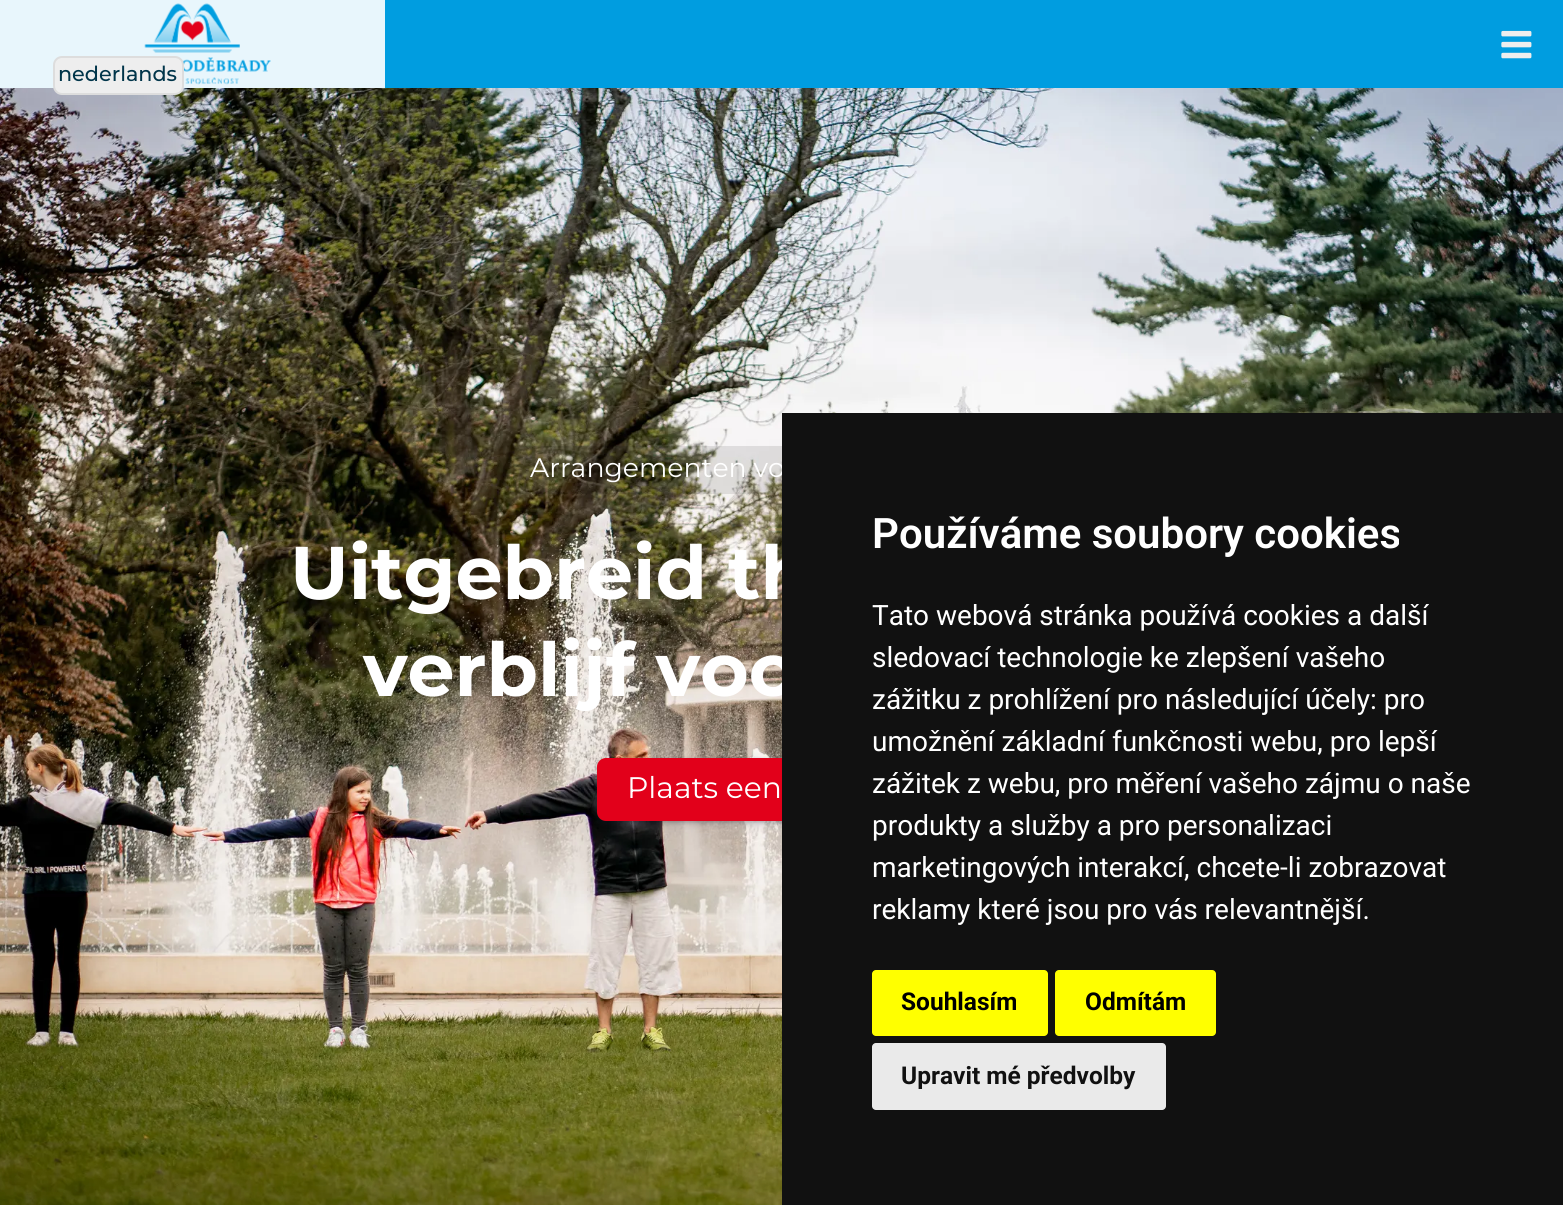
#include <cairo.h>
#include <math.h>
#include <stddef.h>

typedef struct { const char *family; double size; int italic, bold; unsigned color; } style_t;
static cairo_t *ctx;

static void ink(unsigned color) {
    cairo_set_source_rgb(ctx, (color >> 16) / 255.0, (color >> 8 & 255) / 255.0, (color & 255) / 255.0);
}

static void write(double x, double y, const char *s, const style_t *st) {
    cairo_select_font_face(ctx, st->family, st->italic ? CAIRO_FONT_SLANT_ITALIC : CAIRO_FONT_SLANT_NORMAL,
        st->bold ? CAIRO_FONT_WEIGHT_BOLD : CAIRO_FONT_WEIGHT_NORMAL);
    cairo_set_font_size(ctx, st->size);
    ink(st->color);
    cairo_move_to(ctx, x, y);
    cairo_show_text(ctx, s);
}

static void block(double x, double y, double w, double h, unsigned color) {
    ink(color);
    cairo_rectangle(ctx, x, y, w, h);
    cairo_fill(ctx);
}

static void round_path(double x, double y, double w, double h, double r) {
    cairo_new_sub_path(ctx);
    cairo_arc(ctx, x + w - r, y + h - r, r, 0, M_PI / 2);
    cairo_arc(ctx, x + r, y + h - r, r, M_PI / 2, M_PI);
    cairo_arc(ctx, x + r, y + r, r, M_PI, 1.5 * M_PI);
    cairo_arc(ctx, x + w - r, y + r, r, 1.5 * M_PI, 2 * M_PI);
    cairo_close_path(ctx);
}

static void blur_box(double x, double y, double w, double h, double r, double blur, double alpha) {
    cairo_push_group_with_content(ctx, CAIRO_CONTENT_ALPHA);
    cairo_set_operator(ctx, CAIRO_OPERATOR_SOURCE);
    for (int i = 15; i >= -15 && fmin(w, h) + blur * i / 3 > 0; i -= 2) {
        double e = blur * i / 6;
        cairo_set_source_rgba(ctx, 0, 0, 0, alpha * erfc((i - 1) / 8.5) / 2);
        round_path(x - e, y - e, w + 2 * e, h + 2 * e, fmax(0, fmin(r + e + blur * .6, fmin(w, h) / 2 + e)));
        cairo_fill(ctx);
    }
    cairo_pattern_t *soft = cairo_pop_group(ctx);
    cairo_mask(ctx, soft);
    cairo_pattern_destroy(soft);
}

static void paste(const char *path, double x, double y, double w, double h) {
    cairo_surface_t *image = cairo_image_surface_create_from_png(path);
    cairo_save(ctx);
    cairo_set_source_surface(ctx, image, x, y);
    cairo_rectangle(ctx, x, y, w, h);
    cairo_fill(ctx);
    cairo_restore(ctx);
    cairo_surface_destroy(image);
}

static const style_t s1 = {"Montserrat Medium", 20.75, 0, 0, 0x01354a};
static const style_t s2 = {"Montserrat", 26.75, 0, 0, 0xffffff};
static const style_t s3 = {"Montserrat", 74.5, 0, 1, 0xffffff};
static const style_t s4 = {"Montserrat", 29.75, 0, 0, 0xffffff};
static const style_t s5 = {"Roboto SemiBold", 42, 0, 0, 0xffffff};
static const style_t s6 = {"Roboto", 28, 0, 0, 0xffffff};
static const style_t s7 = {"Roboto", 24.5, 0, 1, 0x000000};
static const style_t s8 = {"Roboto", 24.5, 0, 1, 0x111111};

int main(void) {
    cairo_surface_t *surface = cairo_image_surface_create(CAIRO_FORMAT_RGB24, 1563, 1205);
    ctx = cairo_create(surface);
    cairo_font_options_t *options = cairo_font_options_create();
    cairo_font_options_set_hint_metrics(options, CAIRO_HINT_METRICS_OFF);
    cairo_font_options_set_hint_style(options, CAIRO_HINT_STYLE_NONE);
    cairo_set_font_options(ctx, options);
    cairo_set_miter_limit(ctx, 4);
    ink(0xffffff);
    cairo_paint(ctx);
    block(385, 0, 1178, 88, 0x009de0);
    paste("pic1.png", 1501, 30, 31, 29);
    block(0, 0, 385, 88, 0xe8f6fc);
    paste("pic2.png", 144, 3, 127, 82);
    paste("pic3.png", 0, 88, 1563, 1117);
    ink(0xeeeeee);
    round_path(54, 57, 129, 37, 8);
    cairo_fill_preserve(ctx);
    ink(0xdddddd);
    cairo_stroke(ctx);
    write(58, 81, "nederlands", &s1);
    cairo_set_source_rgba(ctx, 0, 0, 0, 0.1);
    round_path(513, 446, 539, 48, 9);
    cairo_fill(ctx);
    write(530, 477, "Arrangementen vo", &s2);
    write(290, 599, "Uitgebreid th", &s3);
    write(363, 696, "verblijf voo", &s3);
    ink(0x000000);
    blur_box(599, 761, 367, 60, 7, 2.5, 0.3);
    ink(0x32325d);
    blur_box(599, 763, 367, 60, 7, 4.5, 0.25);
    ink(0xe2001a);
    round_path(598, 759, 369, 61, 8);
    cairo_fill_preserve(ctx);
    cairo_stroke(ctx);
    write(627, 798, "Plaats een", &s4);
    block(782, 413, 781, 792, 0x111111);
    write(872, 548, "Používáme soubory cookies", &s5);
    write(872, 625, "Tato webová stránka používá cookies a další", &s6);
    write(872, 667, "sledovací technologie ke zlepšení vašeho", &s6);
    write(872, 709, "zážitku z prohlížení pro následující účely: pro", &s6);
    write(872, 751, "umožnění základní funkčnosti webu, pro lepší", &s6);
    write(872, 793, "zážitek z webu, pro měření vašeho zájmu o naše", &s6);
    write(872, 835, "produkty a služby a pro personalizaci", &s6);
    write(872, 877, "marketingových interakcí, chcete-li zobrazovat", &s6);
    write(872, 919, "reklamy které jsou pro vás relevantnější.", &s6);
    ink(0xffff00);
    round_path(872, 970, 176, 66, 4);
    cairo_fill(ctx);
    write(901, 1010, "Souhlasím", &s7);
    ink(0xffff00);
    round_path(1055, 970, 161, 66, 4);
    cairo_fill(ctx);
    write(1085, 1010, "Odmítám", &s7);
    ink(0xeaeaea);
    round_path(872, 1043, 294, 67, 4);
    cairo_fill(ctx);
    write(901, 1084, "Upravit mé předvolby", &s8);
    cairo_surface_write_to_png(surface, "screenshot.png");
    cairo_font_options_destroy(options);
    cairo_destroy(ctx);
    cairo_surface_destroy(surface);
    return 0;
}
